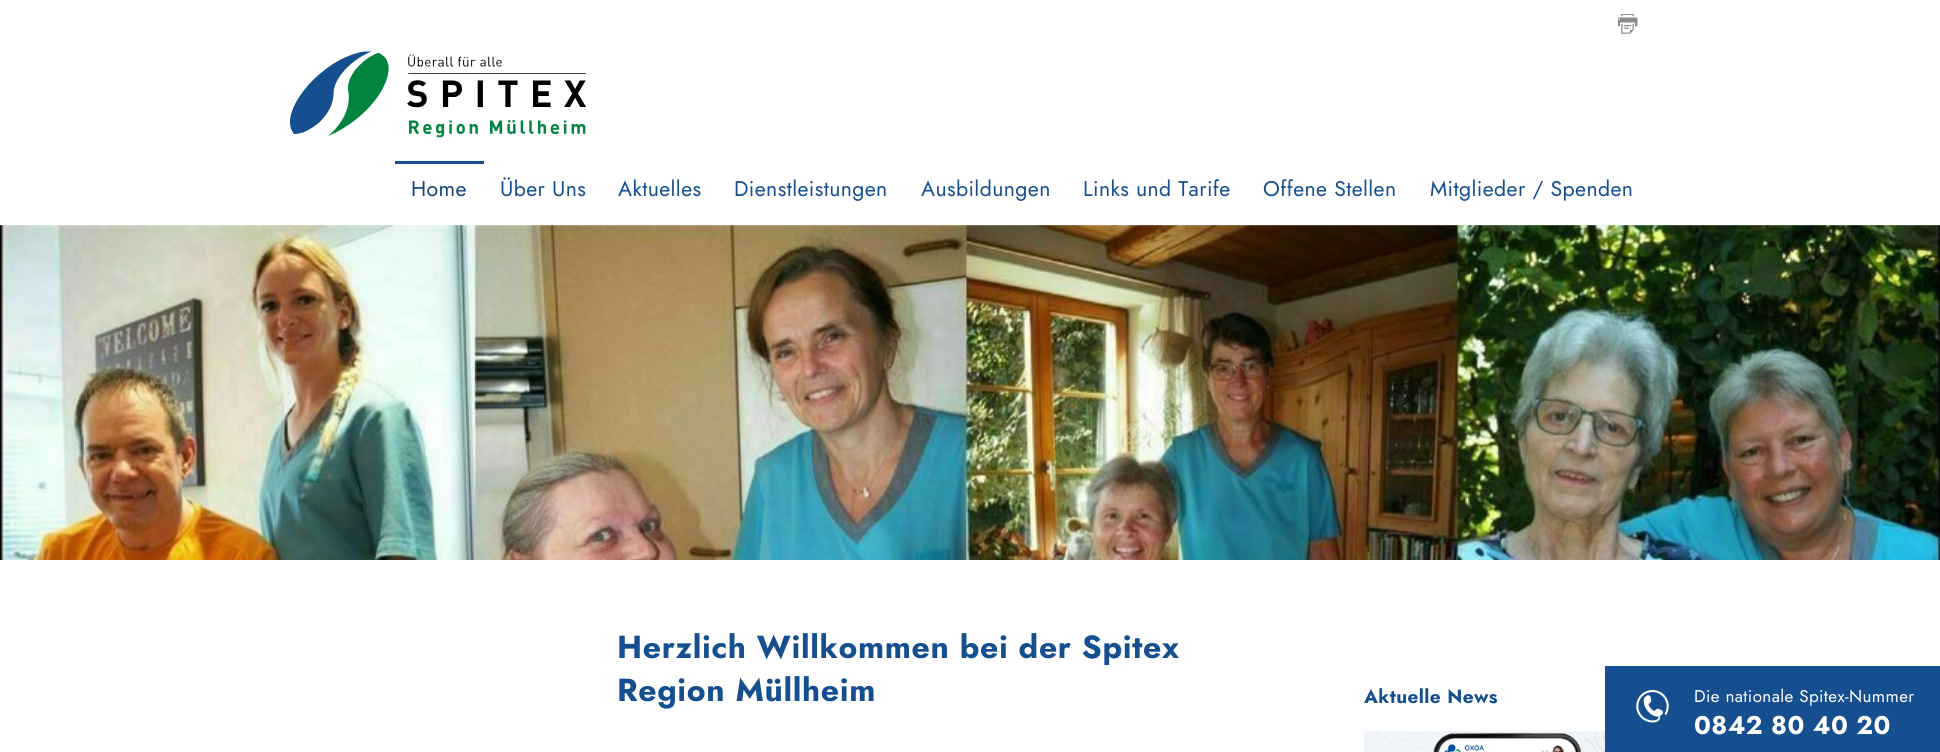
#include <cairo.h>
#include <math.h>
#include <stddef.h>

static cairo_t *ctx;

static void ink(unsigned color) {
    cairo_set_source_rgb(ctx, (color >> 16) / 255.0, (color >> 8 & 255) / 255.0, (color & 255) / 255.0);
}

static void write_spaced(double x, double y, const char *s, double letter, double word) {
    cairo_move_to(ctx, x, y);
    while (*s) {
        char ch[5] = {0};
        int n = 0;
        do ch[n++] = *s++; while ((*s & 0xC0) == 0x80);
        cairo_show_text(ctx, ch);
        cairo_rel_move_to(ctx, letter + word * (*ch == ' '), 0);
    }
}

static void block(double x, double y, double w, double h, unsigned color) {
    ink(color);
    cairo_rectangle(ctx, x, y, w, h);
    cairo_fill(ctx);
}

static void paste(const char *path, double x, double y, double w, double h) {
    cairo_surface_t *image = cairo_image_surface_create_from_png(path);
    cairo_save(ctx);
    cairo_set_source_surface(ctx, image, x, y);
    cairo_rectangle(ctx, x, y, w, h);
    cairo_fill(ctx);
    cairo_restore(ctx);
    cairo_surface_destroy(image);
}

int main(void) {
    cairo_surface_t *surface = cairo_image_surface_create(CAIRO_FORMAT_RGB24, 1940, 752);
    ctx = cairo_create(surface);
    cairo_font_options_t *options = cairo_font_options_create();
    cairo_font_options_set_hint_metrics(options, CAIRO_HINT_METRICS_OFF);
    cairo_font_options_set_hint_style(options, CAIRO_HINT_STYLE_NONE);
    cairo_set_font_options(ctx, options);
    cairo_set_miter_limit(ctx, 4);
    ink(0xffffff);
    cairo_paint(ctx);
    paste("pic1.png", 1618, 14, 20, 20);
    paste("pic2.png", 290, 51, 296, 87);
    block(395, 161, 89, 3, 0x154f90);
    cairo_select_font_face(ctx, "Jost", CAIRO_FONT_SLANT_NORMAL, CAIRO_FONT_WEIGHT_NORMAL);
    cairo_set_font_size(ctx, 21.25);
    ink(0x12437a);
    write_spaced(411, 196, "Home", 0.4, 0);
    ink(0x154f90);
    write_spaced(500, 196, "Über Uns", 0.4, 0);
    write_spaced(618, 196, "Aktuelles", 0.4, 0);
    write_spaced(734, 196, "Dienstleistungen", 0.4, 0);
    write_spaced(921, 196, "Ausbildungen", 0.4, 0);
    write_spaced(1083, 196, "Links und Tarife", 0.4, 0);
    write_spaced(1263, 196, "Offene Stellen", 0.4, 0);
    write_spaced(1430, 196, "Mitglieder / Spenden", 0.4, 0);
    paste("pic3.png", 0, 225, 1940, 335);
    cairo_select_font_face(ctx, "Jost", CAIRO_FONT_SLANT_NORMAL, CAIRO_FONT_WEIGHT_BOLD);
    cairo_set_font_size(ctx, 31.9);
    write_spaced(617, 658, "Herzlich Willkommen bei der Spitex", 0.65, 0);
    write_spaced(617, 701, "Region Müllheim", 0.65, 0);
    cairo_set_font_size(ctx, 19);
    write_spaced(1364, 703, "Aktuelle News", 0.4, 0);
    paste("pic4.png", 1363, 731, 242, 21);
    block(1605, 666, 335, 86, 0x154f90);
    paste("pic5.png", 1636, 690, 33, 33);
    cairo_select_font_face(ctx, "Jost", CAIRO_FONT_SLANT_NORMAL, CAIRO_FONT_WEIGHT_NORMAL);
    cairo_set_font_size(ctx, 17);
    ink(0xffffff);
    write_spaced(1694, 702, "Die nationale Spitex-Nummer", 0.4, 0);
    cairo_select_font_face(ctx, "Jost", CAIRO_FONT_SLANT_NORMAL, CAIRO_FONT_WEIGHT_BOLD);
    cairo_set_font_size(ctx, 25.5);
    write_spaced(1694, 734, "0842 80 40 20", 0.4, 0);
    cairo_surface_write_to_png(surface, "screenshot.png");
    cairo_font_options_destroy(options);
    cairo_destroy(ctx);
    cairo_surface_destroy(surface);
    return 0;
}
